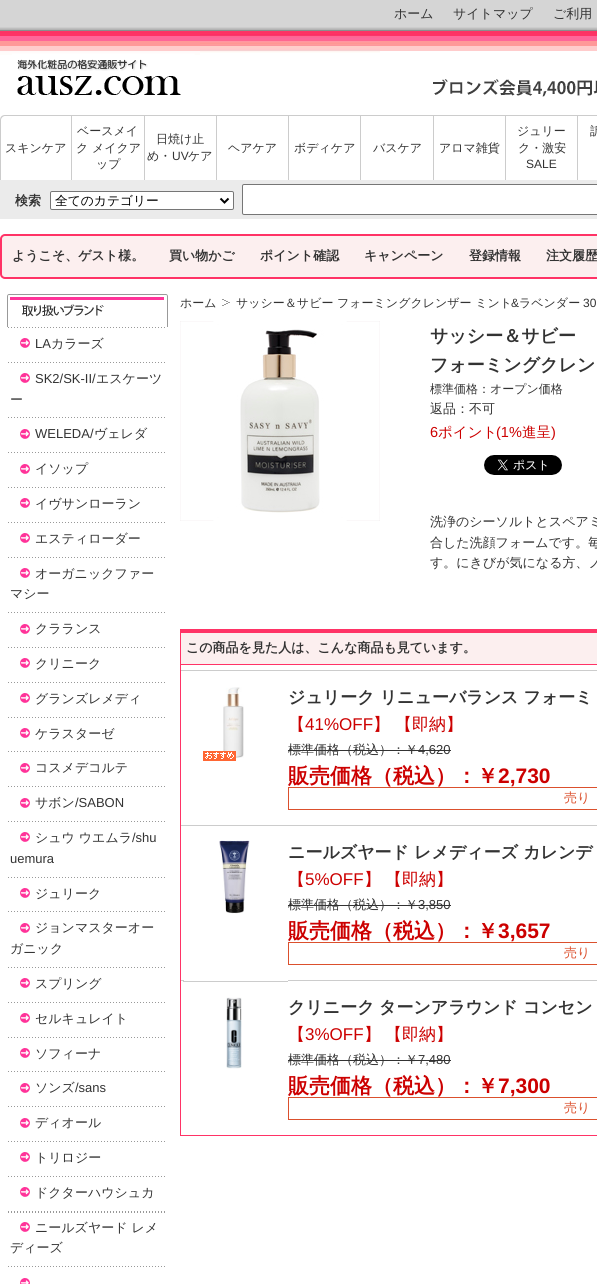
#include <cairo.h>
#include <math.h>
#include <stddef.h>

typedef struct { const char *family; double size; int italic, bold; unsigned color; } style_t;
static cairo_t *ctx;

static void ink(unsigned color) {
    cairo_set_source_rgb(ctx, (color >> 16) / 255.0, (color >> 8 & 255) / 255.0, (color & 255) / 255.0);
}

static void write(double x, double y, const char *s, const style_t *st) {
    cairo_select_font_face(ctx, st->family, st->italic ? CAIRO_FONT_SLANT_ITALIC : CAIRO_FONT_SLANT_NORMAL,
        st->bold ? CAIRO_FONT_WEIGHT_BOLD : CAIRO_FONT_WEIGHT_NORMAL);
    cairo_set_font_size(ctx, st->size);
    ink(st->color);
    cairo_move_to(ctx, x, y);
    cairo_show_text(ctx, s);
}

static void block(double x, double y, double w, double h, unsigned color) {
    ink(color);
    cairo_rectangle(ctx, x, y, w, h);
    cairo_fill(ctx);
}

static void round_path(double x, double y, double w, double h, double r) {
    cairo_new_sub_path(ctx);
    cairo_arc(ctx, x + w - r, y + h - r, r, 0, M_PI / 2);
    cairo_arc(ctx, x + r, y + h - r, r, M_PI / 2, M_PI);
    cairo_arc(ctx, x + r, y + r, r, M_PI, 1.5 * M_PI);
    cairo_arc(ctx, x + w - r, y + r, r, 1.5 * M_PI, 2 * M_PI);
    cairo_close_path(ctx);
}

static void paste(const char *path, double x, double y, double w, double h) {
    cairo_surface_t *image = cairo_image_surface_create_from_png(path);
    cairo_save(ctx);
    cairo_set_source_surface(ctx, image, x, y);
    cairo_rectangle(ctx, x, y, w, h);
    cairo_fill(ctx);
    cairo_restore(ctx);
    cairo_surface_destroy(image);
}

static const style_t s1 = {"WenQuanYi Zen Hei Medium", 13, 0, 0, 0x333333};
static const style_t s2 = {"WenQuanYi Zen Hei Medium", 12, 0, 0, 0x333333};
static const style_t s3 = {"Liberation Sans", 12, 0, 0, 0x333333};
static const style_t s4 = {"WenQuanYi Zen Hei", 13, 0, 1, 0x333333};
static const style_t s5 = {"WenQuanYi Zen Hei Medium", 12.75, 0, 0, 0x000000};
static const style_t s6 = {"Liberation Sans", 13, 0, 0, 0x333333};
static const style_t s7 = {"WenQuanYi Zen Hei", 18, 0, 1, 0x333333};
static const style_t s8 = {"Liberation Sans", 14.5, 0, 0, 0xcc0000};
static const style_t s9 = {"WenQuanYi Zen Hei Medium", 14.5, 0, 0, 0xcc0000};
static const style_t s10 = {"WenQuanYi Zen Hei", 17, 0, 1, 0x333333};
static const style_t s11 = {"WenQuanYi Zen Hei Medium", 17, 0, 0, 0xcc0000};
static const style_t s12 = {"Liberation Sans", 17, 0, 0, 0xcc0000};
static const style_t s13 = {"WenQuanYi Zen Hei", 21, 0, 1, 0xcc0000};
static const style_t s14 = {"Liberation Sans", 21, 0, 1, 0xcc0000};
static const style_t s15 = {"WenQuanYi Zen Hei Medium", 13, 0, 0, 0xdb502d};

int main(void) {
    cairo_surface_t *surface = cairo_image_surface_create(CAIRO_FORMAT_RGB24, 597, 1284);
    ctx = cairo_create(surface);
    cairo_font_options_t *options = cairo_font_options_create();
    cairo_font_options_set_hint_metrics(options, CAIRO_HINT_METRICS_OFF);
    cairo_font_options_set_hint_style(options, CAIRO_HINT_STYLE_NONE);
    cairo_set_font_options(ctx, options);
    cairo_set_miter_limit(ctx, 4);
    ink(0xffffff);
    cairo_paint(ctx);
    block(0, 0, 597, 27, 0xd5d5d5);
    paste("pic1.png", 0, 27, 597, 4);
    write(394, 18, "ホーム", &s1);
    write(453, 18, "サイトマップ", &s1);
    write(553, 18, "ご利用", &s1);
    paste("pic2.png", 0, 31, 597, 22);
    paste("pic3.png", 0, 34, 200, 61);
    paste("pic4.png", 380, 34, 217, 63);
    ink(0xcccccc);
    cairo_set_fill_rule(ctx, CAIRO_FILL_RULE_EVEN_ODD);
    cairo_new_path(ctx);
    cairo_move_to(ctx, 5, 115);
    cairo_line_to(ctx, 72, 115);
    cairo_line_to(ctx, 72, 180);
    cairo_line_to(ctx, 0, 180);
    cairo_line_to(ctx, 0, 120);
    cairo_curve_to(ctx, 0, 117, 2, 115, 5, 115);
    cairo_close_path(ctx);
    cairo_move_to(ctx, 5, 116);
    cairo_line_to(ctx, 71, 116);
    cairo_line_to(ctx, 71, 180);
    cairo_line_to(ctx, 1, 180);
    cairo_line_to(ctx, 1, 120);
    cairo_curve_to(ctx, 1, 118, 3, 116, 5, 116);
    cairo_close_path(ctx);
    cairo_fill(ctx);
    write(5, 152, "スキンケア", &s2);
    block(72, 115, 525, 1, 0xcccccc);
    block(144, 115, 1, 65, 0xcccccc);
    write(77, 135, "ベースメイ", &s2);
    write(76, 152, "ク メイクア", &s2);
    write(96, 168, "ップ", &s2);
    block(216, 115, 1, 65, 0xcccccc);
    write(156, 143, "日焼け止", &s2);
    write(147, 160, "め・", &s2);
    write(172, 160, "UV", &s3);
    write(188, 160, "ケア", &s2);
    block(288, 115, 1, 65, 0xcccccc);
    write(228, 152, "ヘアケア", &s2);
    block(360, 115, 1, 65, 0xcccccc);
    write(294, 152, "ボディケア", &s2);
    block(433, 115, 1, 65, 0xcccccc);
    write(373, 152, "バスケア", &s2);
    block(505, 115, 1, 65, 0xcccccc);
    write(439, 152, "アロマ雑貨", &s2);
    block(577, 115, 1, 65, 0xcccccc);
    write(517, 135, "ジュリー", &s2);
    write(518, 152, "ク・激安", &s2);
    write(526, 168, "SALE", &s3);
    write(590, 135, "訳", &s2);
    block(0, 180, 597, 39, 0xebebeb);
    write(15, 205, "検索", &s4);
    ink(0xffffff);
    round_path(50.5, 191.5, 183, 18, 1.5);
    cairo_fill_preserve(ctx);
    ink(0x767676);
    cairo_set_line_width(ctx, 1);
    cairo_stroke(ctx);
    cairo_new_path(ctx);
    cairo_move_to(ctx, 220.5, 198.5);
    cairo_line_to(ctx, 224.5, 202.5);
    cairo_line_to(ctx, 228.5, 198.5);
    ink(0x000000);
    cairo_set_line_width(ctx, 2);
    cairo_stroke(ctx);
    write(55, 205, "全てのカテゴリー", &s5);
    ink(0xffffff);
    round_path(242.5, 184.5, 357, 30, 1.5);
    cairo_fill_preserve(ctx);
    ink(0x767676);
    cairo_set_line_width(ctx, 1);
    cairo_stroke(ctx);
    ink(0xfcefef);
    round_path(1, 235, 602, 43, 4);
    cairo_fill_preserve(ctx);
    ink(0xff3366);
    cairo_set_line_width(ctx, 2);
    cairo_stroke(ctx);
    write(12, 260, "ようこそ、ゲスト様。", &s4);
    write(169, 260, "買い物かご", &s4);
    write(260, 260, "ポイント確認", &s4);
    write(364, 260, "キャンペーン", &s4);
    write(469, 260, "登録情報", &s4);
    write(546, 260, "注文履歴", &s4);
    paste("pic5.png", 7, 294, 161, 33);
    paste("pic6.png", 8, 327, 157, 1);
    paste("pic7.png", 20, 338, 10, 10);
    write(35, 348, "LA", &s6);
    write(51, 348, "カラーズ", &s1);
    paste("pic6.png", 8, 362, 157, 1);
    paste("pic7.png", 20, 373, 10, 10);
    write(35, 383, "SK2/SK-II/", &s6);
    write(96, 383, "エスケーツ", &s1);
    write(10, 404, "ー", &s1);
    paste("pic6.png", 8, 417, 157, 1);
    paste("pic7.png", 20, 429, 10, 10);
    write(35, 438, "WELEDA/", &s6);
    write(94, 438, "ヴェレダ", &s1);
    paste("pic6.png", 8, 452, 157, 1);
    paste("pic7.png", 20, 464, 10, 10);
    write(35, 473, "イソップ", &s1);
    paste("pic6.png", 8, 487, 157, 1);
    paste("pic7.png", 20, 498, 10, 10);
    write(35, 508, "イヴサンローラン", &s1);
    paste("pic6.png", 8, 522, 157, 1);
    paste("pic7.png", 20, 533, 10, 10);
    write(35, 543, "エスティローダー", &s1);
    paste("pic6.png", 8, 557, 157, 1);
    paste("pic7.png", 20, 568, 10, 10);
    write(35, 578, "オーガニックファー", &s1);
    write(10, 598, "マシー", &s1);
    paste("pic6.png", 8, 612, 157, 1);
    paste("pic7.png", 20, 624, 10, 10);
    write(35, 633, "クラランス", &s1);
    paste("pic6.png", 8, 647, 157, 1);
    paste("pic7.png", 20, 658, 10, 10);
    write(35, 668, "クリニーク", &s1);
    paste("pic6.png", 8, 682, 157, 1);
    paste("pic7.png", 20, 693, 10, 10);
    write(35, 703, "グランズレメディ", &s1);
    paste("pic6.png", 8, 717, 157, 1);
    paste("pic7.png", 20, 728, 10, 10);
    write(35, 738, "ケラスターゼ", &s1);
    paste("pic6.png", 8, 751, 157, 1);
    paste("pic7.png", 20, 763, 10, 10);
    write(35, 772, "コスメデコルテ", &s1);
    paste("pic6.png", 8, 786, 157, 1);
    paste("pic7.png", 20, 798, 10, 10);
    write(35, 807, "サボン", &s1);
    write(75, 807, "/SABON", &s6);
    paste("pic6.png", 8, 821, 157, 1);
    paste("pic7.png", 20, 832, 10, 10);
    write(35, 842, "シュウ ウエムラ", &s1);
    write(132, 842, "/shu", &s6);
    write(10, 863, "uemura", &s6);
    paste("pic6.png", 8, 877, 157, 1);
    paste("pic7.png", 20, 888, 10, 10);
    write(35, 898, "ジュリーク", &s1);
    paste("pic6.png", 8, 911, 157, 1);
    paste("pic7.png", 20, 923, 10, 10);
    write(35, 932, "ジョンマスターオー", &s1);
    write(10, 953, "ガニック", &s1);
    paste("pic6.png", 8, 967, 157, 1);
    paste("pic7.png", 20, 978, 10, 10);
    write(35, 988, "スプリング", &s1);
    paste("pic6.png", 8, 1002, 157, 1);
    paste("pic7.png", 20, 1013, 10, 10);
    write(35, 1023, "セルキュレイト", &s1);
    paste("pic6.png", 8, 1037, 157, 1);
    paste("pic7.png", 20, 1048, 10, 10);
    write(35, 1058, "ソフィーナ", &s1);
    paste("pic6.png", 8, 1071, 157, 1);
    paste("pic7.png", 20, 1083, 10, 10);
    write(35, 1092, "ソンズ", &s1);
    write(75, 1092, "/sans", &s6);
    paste("pic6.png", 8, 1106, 157, 1);
    paste("pic7.png", 20, 1118, 10, 10);
    write(35, 1127, "ディオール", &s1);
    paste("pic6.png", 8, 1141, 157, 1);
    paste("pic7.png", 20, 1152, 10, 10);
    write(35, 1162, "トリロジー", &s1);
    paste("pic6.png", 8, 1176, 157, 1);
    paste("pic7.png", 20, 1187, 10, 10);
    write(35, 1197, "ドクターハウシュカ", &s1);
    paste("pic8.png", 8, 1211, 157, 2);
    paste("pic7.png", 20, 1222, 10, 10);
    write(35, 1232, "ニールズヤード レメ", &s1);
    write(10, 1252, "ディーズ", &s1);
    paste("pic6.png", 8, 1266, 157, 1);
    paste("pic9.png", 20, 1278, 10, 6);
    write(180, 307, "ホーム", &s2);
    paste("pic10.png", 222, 299, 8, 7);
    write(236, 307, "サッシー＆サビー フォーミングクレンザー ミント", &s2);
    write(511, 307, "&", &s3);
    write(519, 307, "ラベンダー", &s2);
    write(583, 307, "30", &s3);
    paste("pic11.png", 180, 321, 200, 200);
    write(430, 342, "サッシー＆サビー", &s7);
    write(430, 371, "フォーミングクレン", &s7);
    write(430, 393, "標準価格：オープン価格", &s2);
    write(430, 413, "返品：不可", &s1);
    write(430, 437, "6", &s8);
    write(438, 437, "ポイント", &s9);
    write(496, 437, "(1%", &s8);
    write(522, 437, "進呈", &s9);
    write(551, 437, ")", &s8);
    paste("pic12.png", 484, 455, 78, 20);
    write(430, 526, "洗浄のシーソルトとスペアミ", &s1);
    write(430, 547, "合した洗顔フォームです。毎", &s1);
    write(430, 567, "す。にきびが気になる方、ノ", &s1);
    cairo_rectangle(ctx, 180.5, 629.5, 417, 506);
    ink(0xff3366);
    cairo_set_line_width(ctx, 1);
    cairo_stroke(ctx);
    block(181, 633, 416, 31, 0xfcefef);
    block(181, 630, 416, 3, 0xff3366);
    block(181, 664, 416, 1, 0xff3366);
    write(186, 652, "この商品を見た人は、こんな商品も見ています。", &s4);
    block(181, 670, 107, 1, 0xcccccc);
    paste("pic13.png", 223, 687, 21, 71);
    paste("pic14.png", 203, 751, 33, 10);
    block(288, 670, 309, 1, 0xcccccc);
    write(288, 703, "ジュリーク リニューバランス フォーミ", &s10);
    write(288, 730, "【", &s11);
    write(305, 730, "41%OFF", &s12);
    write(373, 730, "】", &s11);
    write(395, 730, "【即納】", &s11);
    write(288, 754, "標準価格（税込）：￥", &s1);
    block(288, 750, 163, 1, 0x333333);
    write(418, 754, "4,620", &s6);
    write(288, 783, "販売価格（税込）：￥", &s13);
    write(498, 783, "2,730", &s14);
    cairo_rectangle(ctx, 288.5, 787.5, 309, 22);
    ink(0xdb502d);
    cairo_stroke(ctx);
    write(564, 802, "売り", &s15);
    block(181, 825, 107, 1, 0xcccccc);
    paste("pic15.png", 219, 840, 31, 74);
    block(288, 825, 309, 1, 0xcccccc);
    write(288, 858, "ニールズヤード レメディーズ カレンデ", &s10);
    write(288, 885, "【", &s11);
    write(305, 885, "5%OFF", &s12);
    write(364, 885, "】", &s11);
    write(385, 885, "【即納】", &s11);
    write(288, 909, "標準価格（税込）：￥", &s1);
    block(288, 905, 163, 1, 0x333333);
    write(418, 909, "3,850", &s6);
    write(288, 938, "販売価格（税込）：￥", &s13);
    write(498, 938, "3,657", &s14);
    cairo_rectangle(ctx, 288.5, 942.5, 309, 22);
    ink(0xdb502d);
    cairo_stroke(ctx);
    write(564, 957, "売り", &s15);
    block(181, 980, 3, 1, 0xcccccc);
    block(183, 981, 105, 1, 0xcccccc);
    paste("pic16.png", 226, 997, 16, 72);
    block(288, 980, 309, 1, 0xcccccc);
    write(288, 1013, "クリニーク", &s10);
    write(379, 1013, "ターンアラウンド", &s10);
    write(523, 1013, "コンセン", &s10);
    write(288, 1040, "【", &s11);
    write(305, 1040, "3%OFF", &s12);
    write(364, 1040, "】", &s11);
    write(385, 1040, "【即納】", &s11);
    write(288, 1064, "標準価格（税込）：￥", &s1);
    block(288, 1060, 163, 1, 0x333333);
    write(418, 1064, "7,480", &s6);
    write(288, 1093, "販売価格（税込）：￥", &s13);
    write(498, 1093, "7,300", &s14);
    cairo_rectangle(ctx, 288.5, 1097.5, 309, 22);
    ink(0xdb502d);
    cairo_stroke(ctx);
    write(564, 1112, "売り", &s15);
    cairo_surface_write_to_png(surface, "screenshot.png");
    cairo_font_options_destroy(options);
    cairo_destroy(ctx);
    cairo_surface_destroy(surface);
    return 0;
}
